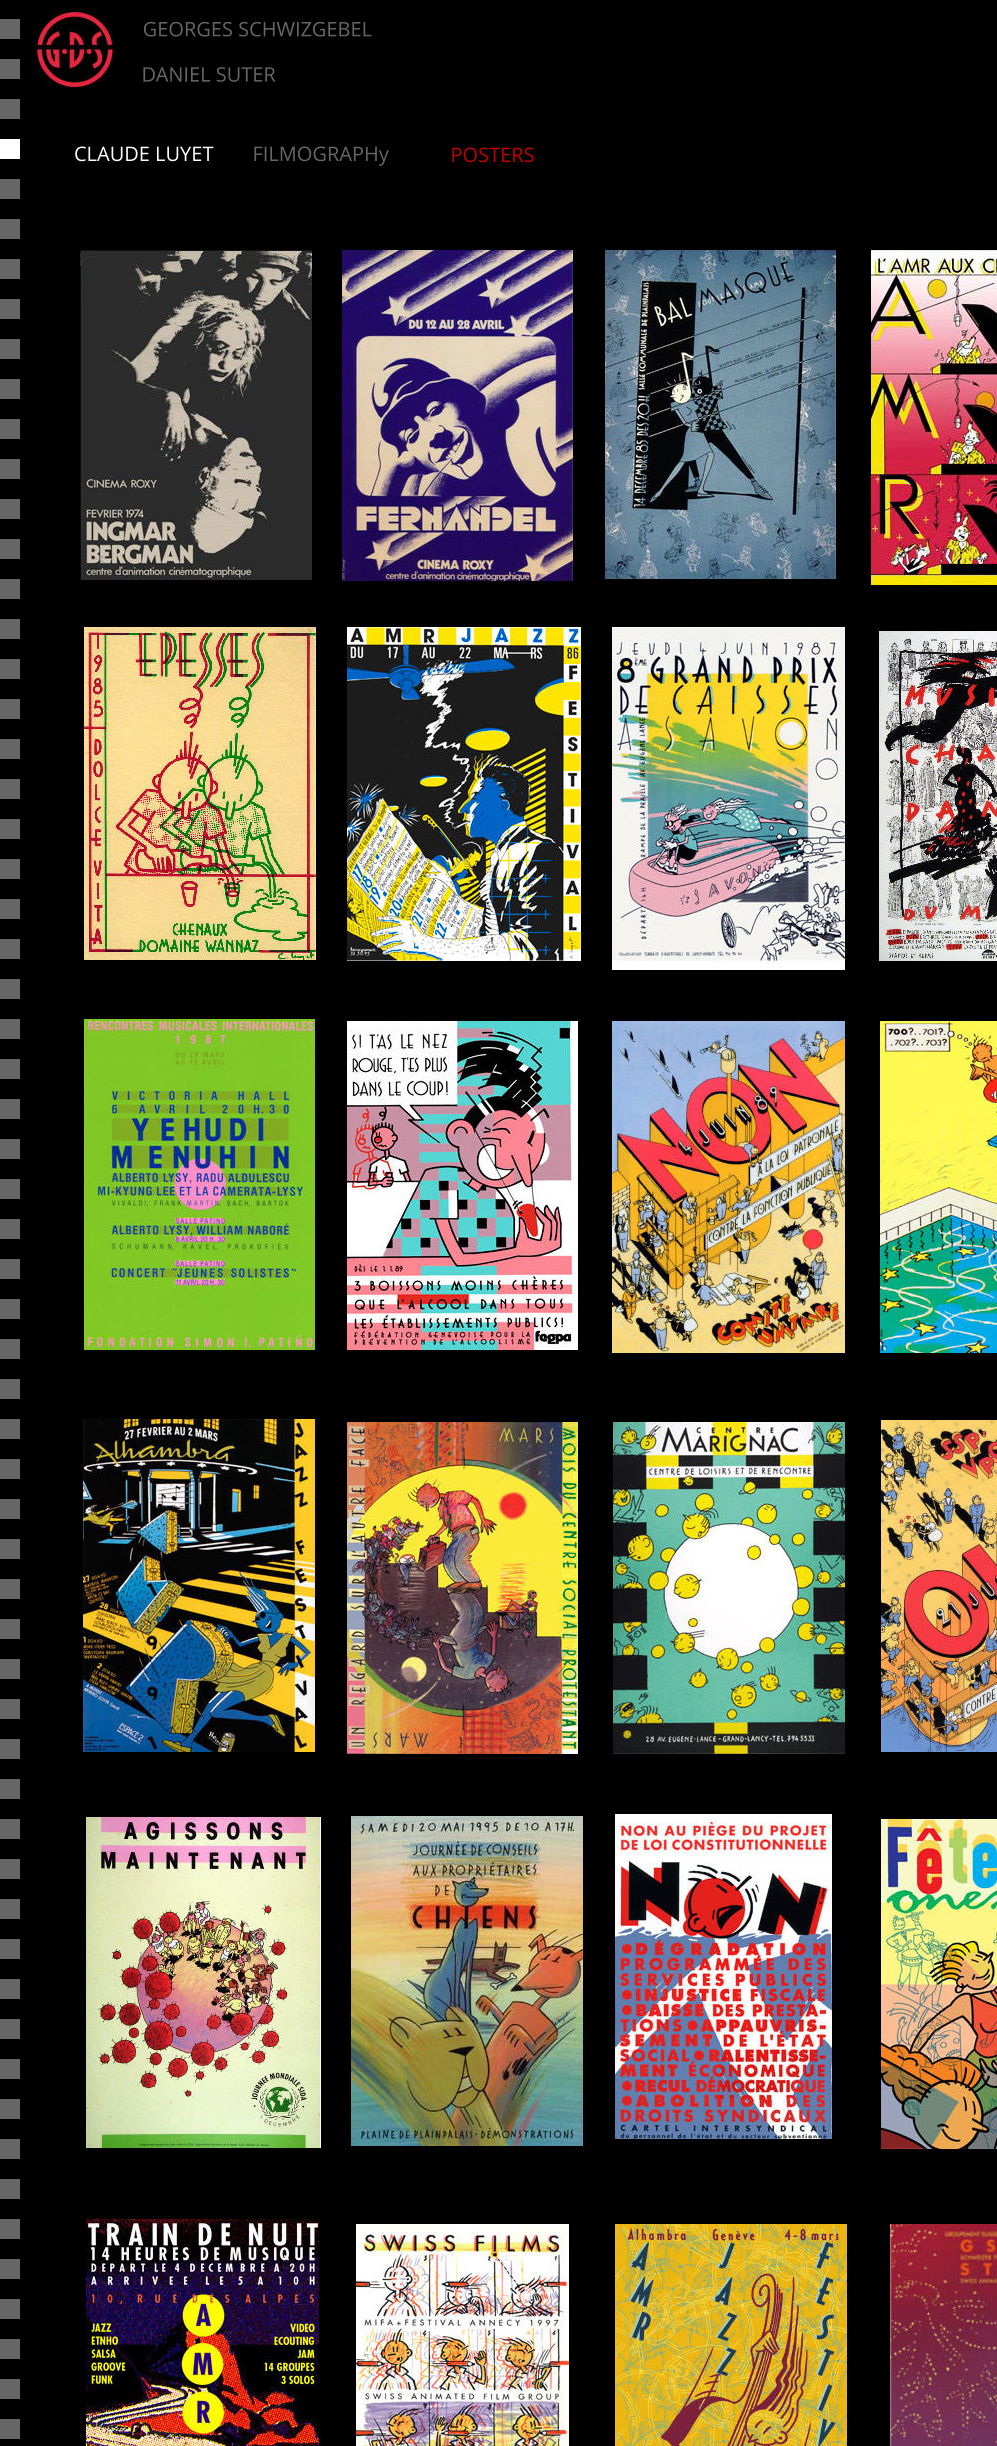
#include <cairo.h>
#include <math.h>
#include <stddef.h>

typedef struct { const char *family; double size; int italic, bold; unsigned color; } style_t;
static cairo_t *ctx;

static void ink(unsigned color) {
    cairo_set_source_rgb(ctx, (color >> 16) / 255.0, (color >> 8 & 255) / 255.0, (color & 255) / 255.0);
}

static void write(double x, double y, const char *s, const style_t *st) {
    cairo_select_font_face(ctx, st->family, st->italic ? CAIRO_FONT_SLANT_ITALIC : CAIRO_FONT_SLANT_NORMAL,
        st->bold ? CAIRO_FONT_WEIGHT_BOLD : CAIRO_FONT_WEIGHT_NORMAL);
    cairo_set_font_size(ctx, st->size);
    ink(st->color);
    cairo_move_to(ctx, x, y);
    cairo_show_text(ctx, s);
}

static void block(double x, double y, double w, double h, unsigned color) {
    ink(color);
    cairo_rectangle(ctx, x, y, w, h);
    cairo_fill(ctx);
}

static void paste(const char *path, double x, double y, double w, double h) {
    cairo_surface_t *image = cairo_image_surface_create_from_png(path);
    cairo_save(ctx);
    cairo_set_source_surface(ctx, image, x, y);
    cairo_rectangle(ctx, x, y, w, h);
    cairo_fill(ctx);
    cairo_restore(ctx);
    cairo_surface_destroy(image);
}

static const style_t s1 = {"Open Sans", 20, 0, 0, 0xffffff};

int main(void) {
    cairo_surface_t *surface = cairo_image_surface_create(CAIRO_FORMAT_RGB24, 997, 2446);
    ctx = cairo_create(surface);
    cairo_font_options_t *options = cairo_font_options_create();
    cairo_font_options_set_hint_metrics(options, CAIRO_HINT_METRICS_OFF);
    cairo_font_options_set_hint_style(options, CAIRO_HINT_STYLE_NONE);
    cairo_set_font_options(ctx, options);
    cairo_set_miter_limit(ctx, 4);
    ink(0x000000);
    cairo_paint(ctx);
    block(0, 19, 20, 20, 0x666666);
    paste("pic1.png", 36, 11, 78, 77);
    paste("pic2.png", 143, 21, 229, 16);
    block(0, 59, 20, 20, 0x666666);
    paste("pic3.png", 143, 67, 133, 15);
    block(0, 99, 20, 20, 0x666666);
    block(0, 139, 20, 20, 0xffffff);
    write(74, 161, "CLAUDE LUYET", &s1);
    paste("pic4.png", 254, 146, 135, 20);
    paste("pic5.png", 452, 147, 82, 16);
    block(0, 179, 20, 20, 0x666666);
    block(0, 219, 20, 20, 0x666666);
    block(0, 259, 20, 20, 0x666666);
    paste("pic6.png", 80, 250, 232, 330);
    paste("pic7.png", 342, 250, 231, 331);
    paste("pic8.png", 605, 250, 231, 329);
    paste("pic9.png", 871, 250, 126, 335);
    block(0, 299, 20, 20, 0x666666);
    block(0, 339, 20, 20, 0x666666);
    block(0, 379, 20, 20, 0x666666);
    block(0, 419, 20, 20, 0x666666);
    block(0, 459, 20, 20, 0x666666);
    block(0, 499, 20, 20, 0x666666);
    block(0, 539, 20, 20, 0x666666);
    block(0, 579, 20, 20, 0x666666);
    block(0, 619, 20, 20, 0x666666);
    paste("pic10.png", 84, 627, 232, 333);
    paste("pic11.png", 347, 627, 234, 334);
    paste("pic12.png", 612, 627, 233, 343);
    paste("pic13.png", 879, 631, 118, 330);
    block(0, 659, 20, 20, 0x666666);
    block(0, 699, 20, 20, 0x666666);
    block(0, 739, 20, 20, 0x666666);
    block(0, 779, 20, 20, 0x666666);
    block(0, 819, 20, 20, 0x666666);
    block(0, 859, 20, 20, 0x666666);
    block(0, 899, 20, 20, 0x666666);
    block(0, 939, 20, 20, 0x666666);
    block(0, 979, 20, 20, 0x666666);
    block(0, 1019, 20, 20, 0x666666);
    paste("pic14.png", 84, 1019, 231, 331);
    paste("pic15.png", 347, 1021, 231, 329);
    paste("pic16.png", 612, 1021, 233, 332);
    paste("pic17.png", 880, 1021, 117, 332);
    block(0, 1059, 20, 20, 0x666666);
    block(0, 1099, 20, 20, 0x666666);
    block(0, 1139, 20, 20, 0x666666);
    block(0, 1179, 20, 20, 0x666666);
    block(0, 1219, 20, 20, 0x666666);
    block(0, 1259, 20, 20, 0x666666);
    block(0, 1299, 20, 20, 0x666666);
    block(0, 1339, 20, 20, 0x666666);
    block(0, 1379, 20, 20, 0x666666);
    block(0, 1419, 20, 20, 0x666666);
    paste("pic18.png", 83, 1419, 232, 333);
    paste("pic19.png", 347, 1422, 231, 332);
    paste("pic20.png", 613, 1422, 232, 332);
    paste("pic21.png", 881, 1420, 116, 332);
    block(0, 1459, 20, 20, 0x666666);
    block(0, 1499, 20, 20, 0x666666);
    block(0, 1539, 20, 20, 0x666666);
    block(0, 1579, 20, 20, 0x666666);
    block(0, 1619, 20, 20, 0x666666);
    block(0, 1659, 20, 20, 0x666666);
    block(0, 1699, 20, 20, 0x666666);
    block(0, 1739, 20, 20, 0x666666);
    block(0, 1779, 20, 20, 0x666666);
    block(0, 1819, 20, 20, 0x666666);
    paste("pic22.png", 86, 1817, 235, 331);
    paste("pic23.png", 351, 1816, 232, 330);
    paste("pic24.png", 615, 1814, 217, 325);
    paste("pic25.png", 881, 1819, 116, 330);
    block(0, 1859, 20, 20, 0x666666);
    block(0, 1899, 20, 20, 0x666666);
    block(0, 1939, 20, 20, 0x666666);
    block(0, 1979, 20, 20, 0x666666);
    block(0, 2019, 20, 20, 0x666666);
    block(0, 2059, 20, 20, 0x666666);
    block(0, 2099, 20, 20, 0x666666);
    block(0, 2139, 20, 20, 0x666666);
    block(0, 2179, 20, 20, 0x666666);
    block(0, 2219, 20, 20, 0x666666);
    paste("pic26.png", 86, 2219, 233, 227);
    paste("pic27.png", 356, 2224, 213, 222);
    paste("pic28.png", 615, 2224, 232, 222);
    paste("pic29.png", 890, 2224, 107, 222);
    block(0, 2259, 20, 20, 0x666666);
    block(0, 2299, 20, 20, 0x666666);
    block(0, 2339, 20, 20, 0x666666);
    block(0, 2379, 20, 20, 0x666666);
    block(0, 2419, 20, 20, 0x666666);
    cairo_surface_write_to_png(surface, "screenshot.png");
    cairo_font_options_destroy(options);
    cairo_destroy(ctx);
    cairo_surface_destroy(surface);
    return 0;
}
